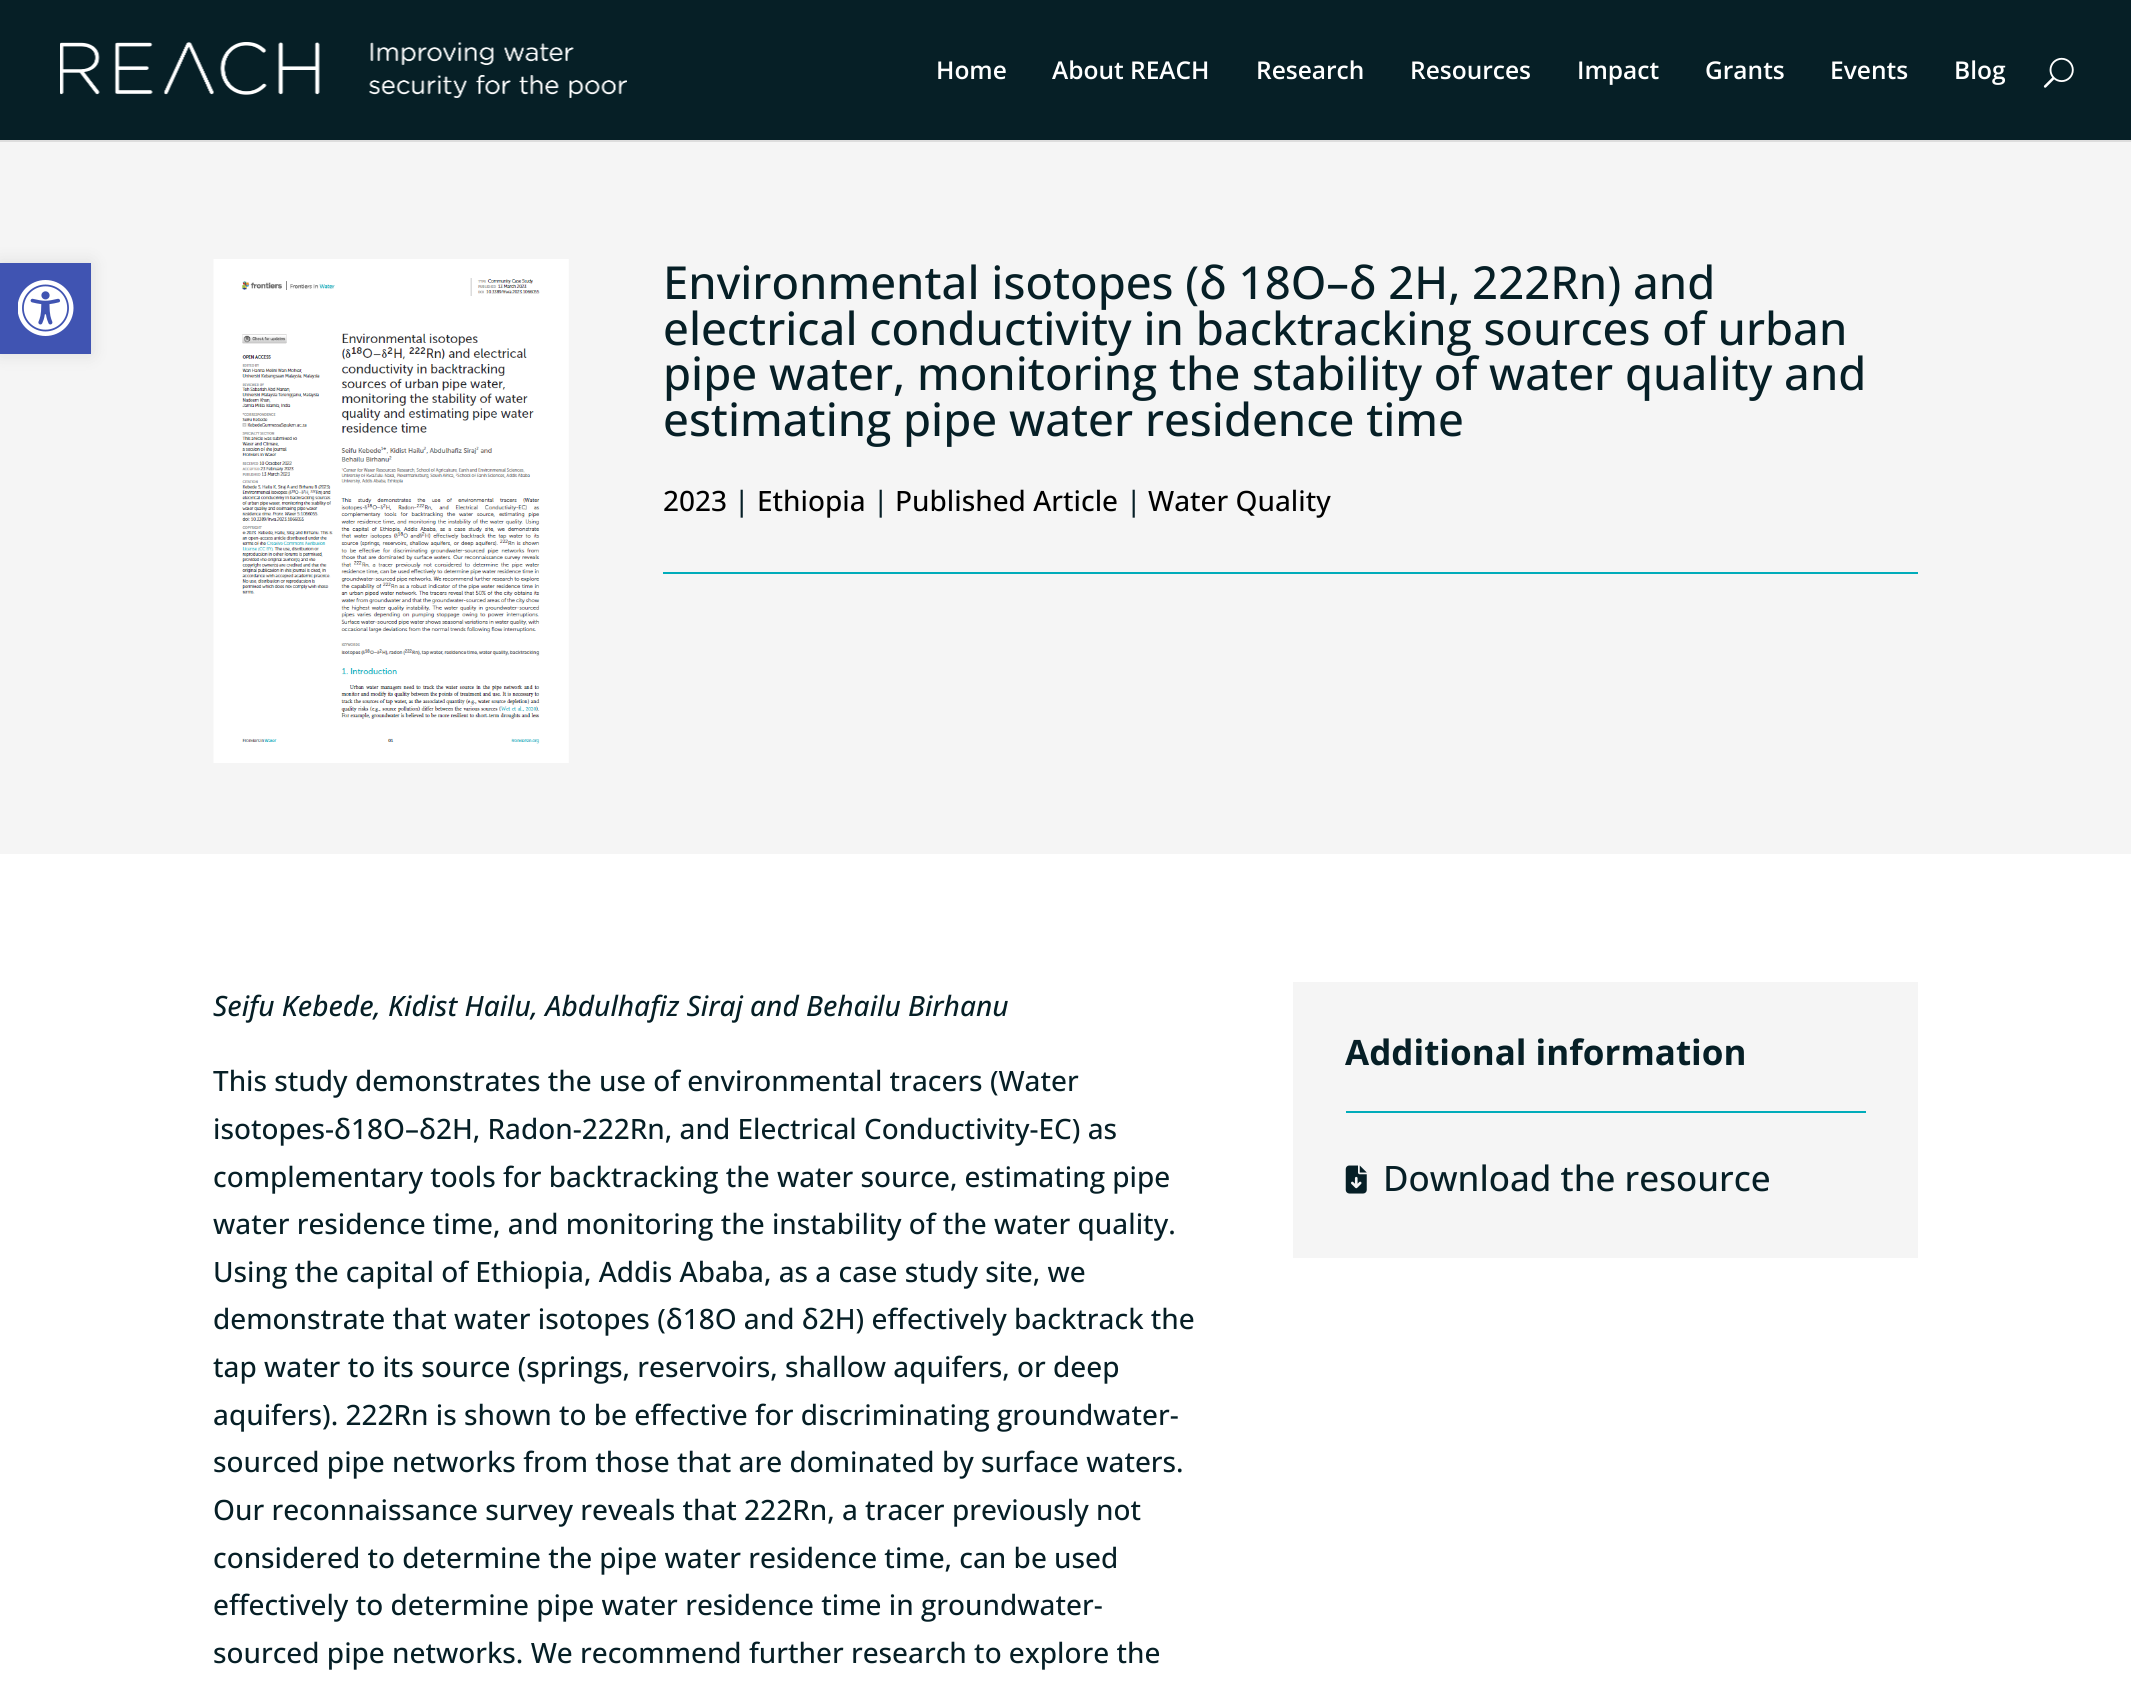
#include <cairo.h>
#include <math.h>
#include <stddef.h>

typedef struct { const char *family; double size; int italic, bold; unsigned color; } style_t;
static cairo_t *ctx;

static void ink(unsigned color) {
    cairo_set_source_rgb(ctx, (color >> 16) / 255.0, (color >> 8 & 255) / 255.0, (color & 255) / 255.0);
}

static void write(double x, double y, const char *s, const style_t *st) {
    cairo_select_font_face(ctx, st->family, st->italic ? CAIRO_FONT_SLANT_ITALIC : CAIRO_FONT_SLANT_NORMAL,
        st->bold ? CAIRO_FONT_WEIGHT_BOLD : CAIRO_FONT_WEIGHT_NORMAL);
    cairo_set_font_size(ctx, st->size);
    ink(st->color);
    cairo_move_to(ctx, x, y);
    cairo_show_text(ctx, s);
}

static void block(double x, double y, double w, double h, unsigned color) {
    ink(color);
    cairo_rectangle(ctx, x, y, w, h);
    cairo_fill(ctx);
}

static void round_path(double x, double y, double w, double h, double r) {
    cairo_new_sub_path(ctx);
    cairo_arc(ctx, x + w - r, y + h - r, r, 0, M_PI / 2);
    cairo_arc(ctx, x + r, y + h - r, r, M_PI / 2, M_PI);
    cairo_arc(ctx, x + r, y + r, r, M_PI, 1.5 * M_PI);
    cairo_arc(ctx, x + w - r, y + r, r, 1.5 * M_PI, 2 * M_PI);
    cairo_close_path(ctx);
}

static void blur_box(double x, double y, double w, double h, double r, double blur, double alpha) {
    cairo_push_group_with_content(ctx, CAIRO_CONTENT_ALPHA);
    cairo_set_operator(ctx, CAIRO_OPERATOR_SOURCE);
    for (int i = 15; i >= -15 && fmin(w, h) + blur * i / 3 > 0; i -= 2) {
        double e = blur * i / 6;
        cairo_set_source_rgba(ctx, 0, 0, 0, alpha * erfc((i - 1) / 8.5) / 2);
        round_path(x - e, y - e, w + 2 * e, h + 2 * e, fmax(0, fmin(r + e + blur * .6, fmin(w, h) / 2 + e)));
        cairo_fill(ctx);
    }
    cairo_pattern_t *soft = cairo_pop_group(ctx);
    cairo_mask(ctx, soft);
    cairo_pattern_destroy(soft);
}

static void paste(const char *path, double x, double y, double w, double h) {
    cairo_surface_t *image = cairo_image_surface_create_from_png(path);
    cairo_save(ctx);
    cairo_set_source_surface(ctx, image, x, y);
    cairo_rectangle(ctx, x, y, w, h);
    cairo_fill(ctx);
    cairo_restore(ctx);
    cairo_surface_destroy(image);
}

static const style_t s1 = {"Open Sans SemiBold", 24.5, 0, 0, 0xffffff};
static const style_t s2 = {"Open Sans Medium", 45.5, 0, 0, 0x061f26};
static const style_t s3 = {"Open Sans Medium", 28, 0, 0, 0x000000};
static const style_t s4 = {"Open Sans Medium", 28, 0, 0, 0x061f26};
static const style_t s5 = {"Open Sans Medium", 28, 1, 0, 0x061f26};
static const style_t s6 = {"Open Sans", 35, 0, 1, 0x061f26};
static const style_t s7 = {"Open Sans Medium", 35, 0, 0, 0x061f26};

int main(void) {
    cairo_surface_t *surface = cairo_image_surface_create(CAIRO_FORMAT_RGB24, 2131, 1700);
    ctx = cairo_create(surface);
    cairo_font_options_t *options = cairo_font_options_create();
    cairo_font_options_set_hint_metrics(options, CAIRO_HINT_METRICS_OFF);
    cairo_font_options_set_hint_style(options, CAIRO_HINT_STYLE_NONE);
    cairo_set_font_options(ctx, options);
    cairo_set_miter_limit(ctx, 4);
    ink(0xffffff);
    cairo_paint(ctx);
    block(0, 142, 2131, 712, 0xf5f5f5);
    ink(0x000000);
    blur_box(0, 263, 91, 91, 0, 9, 0.1);
    block(0, 263, 91, 91, 0x4054b2);
    paste("pic1.png", 18, 280, 56, 56);
    ink(0xdddddd);
    cairo_new_path(ctx);
    cairo_move_to(ctx, 0, 140);
    cairo_line_to(ctx, 0, 142);
    cairo_line_to(ctx, 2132, 142);
    cairo_line_to(ctx, 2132, 2);
    cairo_line_to(ctx, 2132, 140);
    cairo_close_path(ctx);
    cairo_fill(ctx);
    block(0, 0, 2131, 140, 0x061f26);
    paste("pic2.png", 60, 42, 567, 56);
    write(936, 79, "Home", &s1);
    write(1052, 79, "About REACH", &s1);
    write(1256, 79, "Research", &s1);
    write(1410, 79, "Resources", &s1);
    write(1577, 79, "Impact", &s1);
    write(1705, 79, "Grants", &s1);
    write(1830, 79, "Events", &s1);
    write(1954, 79, "Blog", &s1);
    paste("pic3.png", 2043, 57, 31, 31);
    paste("pic4.png", 213, 259, 356, 504);
    write(663, 299, "Environmental isotopes (δ 18O–δ 2H, 222Rn) and", &s2);
    write(663, 345, "electrical conductivity in backtracking sources of urban", &s2);
    write(663, 390, "pipe water, monitoring the stability of water quality and", &s2);
    write(663, 436, "estimating pipe water residence time", &s2);
    write(663, 511, "2023", &s3);
    write(734, 511, "|", &s4);
    write(757, 511, "Ethiopia", &s3);
    write(873, 511, "|", &s4);
    write(895, 511, "Published Article", &s3);
    write(1126, 511, "|", &s4);
    write(1148, 511, "Water Quality", &s3);
    block(663, 572, 1255, 2, 0x00acba);
    write(213, 1016, "Seifu Kebede, Kidist Hailu, Abdulhafiz Siraj and Behailu Birhanu", &s5);
    write(213, 1091, "This study demonstrates the use of environmental tracers (Water", &s4);
    write(213, 1139, "isotopes-δ18O–δ2H, Radon-222Rn, and Electrical Conductivity-EC) as", &s4);
    write(213, 1187, "complementary tools for backtracking the water source, estimating pipe", &s4);
    write(213, 1234, "water residence time, and monitoring the instability of the water quality.", &s4);
    write(213, 1282, "Using the capital of Ethiopia, Addis Ababa, as a case study site, we", &s4);
    write(213, 1329, "demonstrate that water isotopes (δ18O and δ2H) effectively backtrack the", &s4);
    write(213, 1377, "tap water to its source (springs, reservoirs, shallow aquifers, or deep", &s4);
    write(213, 1425, "aquifers). 222Rn is shown to be effective for discriminating groundwater-", &s4);
    write(213, 1472, "sourced pipe networks from those that are dominated by surface waters.", &s4);
    write(213, 1520, "Our reconnaissance survey reveals that 222Rn, a tracer previously not", &s4);
    write(213, 1568, "considered to determine the pipe water residence time, can be used", &s4);
    write(213, 1615, "effectively to determine pipe water residence time in groundwater-", &s4);
    write(213, 1663, "sourced pipe networks. We recommend further research to explore the", &s4);
    block(1293, 982, 625, 276, 0xf5f5f5);
    write(1345, 1065, "Additional information", &s6);
    block(1346, 1111, 520, 2, 0x00acba);
    paste("pic5.png", 1345, 1165, 22, 29);
    write(1383, 1191, "Download the resource", &s7);
    cairo_surface_write_to_png(surface, "screenshot.png");
    cairo_font_options_destroy(options);
    cairo_destroy(ctx);
    cairo_surface_destroy(surface);
    return 0;
}
